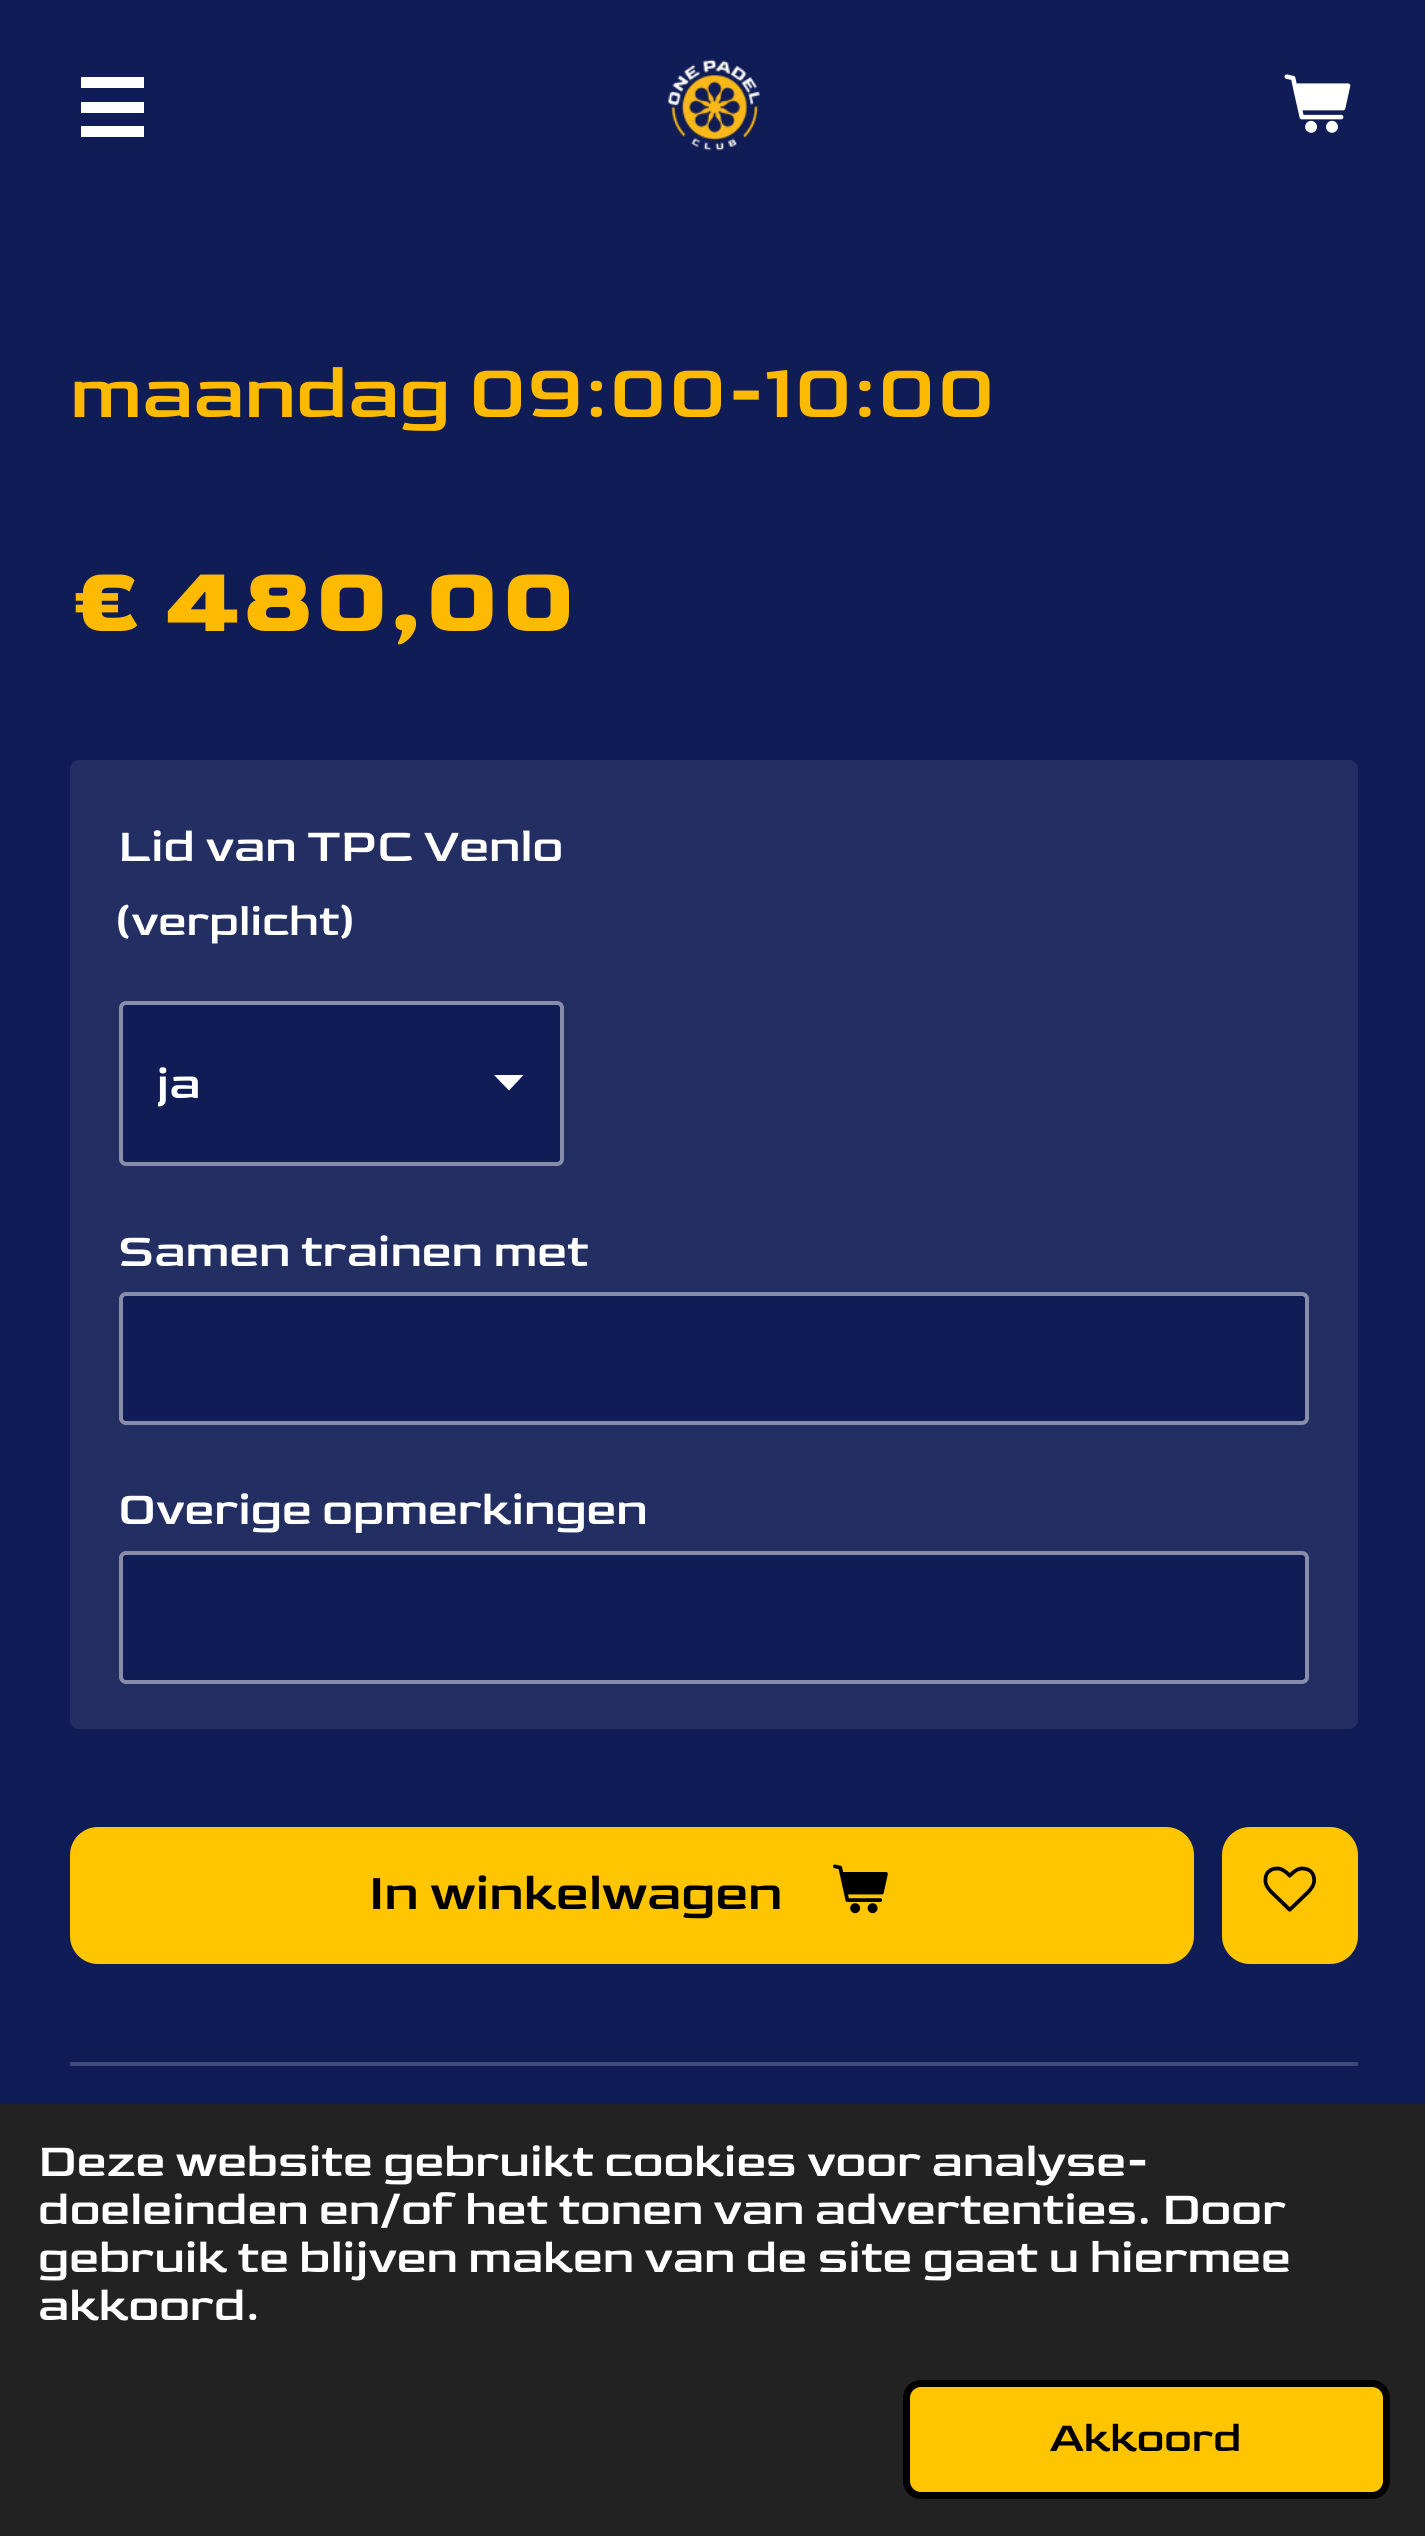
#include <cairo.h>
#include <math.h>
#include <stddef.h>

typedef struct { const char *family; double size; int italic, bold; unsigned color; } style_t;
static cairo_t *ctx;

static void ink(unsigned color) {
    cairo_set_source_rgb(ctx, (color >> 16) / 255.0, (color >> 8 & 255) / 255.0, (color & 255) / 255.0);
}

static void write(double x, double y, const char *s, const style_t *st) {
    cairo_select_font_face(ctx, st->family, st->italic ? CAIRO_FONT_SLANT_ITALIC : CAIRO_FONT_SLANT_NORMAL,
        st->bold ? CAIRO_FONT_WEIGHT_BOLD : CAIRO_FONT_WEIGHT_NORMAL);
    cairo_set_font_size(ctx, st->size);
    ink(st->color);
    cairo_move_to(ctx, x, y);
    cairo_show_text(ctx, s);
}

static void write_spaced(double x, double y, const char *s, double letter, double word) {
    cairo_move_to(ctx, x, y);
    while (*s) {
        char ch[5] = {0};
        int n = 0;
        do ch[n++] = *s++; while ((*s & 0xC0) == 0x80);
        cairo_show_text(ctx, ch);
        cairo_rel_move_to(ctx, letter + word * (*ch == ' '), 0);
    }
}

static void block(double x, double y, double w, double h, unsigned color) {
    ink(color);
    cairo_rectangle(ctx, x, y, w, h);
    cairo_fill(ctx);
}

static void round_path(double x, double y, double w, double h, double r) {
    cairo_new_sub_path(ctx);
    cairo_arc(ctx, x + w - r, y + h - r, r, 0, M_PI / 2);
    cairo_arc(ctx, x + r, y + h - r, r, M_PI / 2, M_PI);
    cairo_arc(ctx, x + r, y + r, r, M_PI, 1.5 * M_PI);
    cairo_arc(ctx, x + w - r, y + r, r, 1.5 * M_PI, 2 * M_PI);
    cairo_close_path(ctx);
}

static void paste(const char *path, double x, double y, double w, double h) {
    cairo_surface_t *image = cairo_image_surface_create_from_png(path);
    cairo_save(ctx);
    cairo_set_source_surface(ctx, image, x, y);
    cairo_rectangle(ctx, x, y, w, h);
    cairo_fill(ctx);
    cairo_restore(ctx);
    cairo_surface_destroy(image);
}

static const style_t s1 = {"Goldman", 78.75, 0, 0, 0xfeba00};
static const style_t s2 = {"Goldman", 96, 0, 1, 0xfeba00};
static const style_t s3 = {"Goldman", 47.95, 0, 0, 0xffffff};
static const style_t s4 = {"Goldman", 45.5, 0, 0, 0xffffff};
static const style_t s5 = {"Goldman", 52.5, 0, 0, 0x000000};
static const style_t s6 = {"Goldman", 43, 0, 0, 0x000000};

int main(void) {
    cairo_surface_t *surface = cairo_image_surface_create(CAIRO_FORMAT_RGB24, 1425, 2536);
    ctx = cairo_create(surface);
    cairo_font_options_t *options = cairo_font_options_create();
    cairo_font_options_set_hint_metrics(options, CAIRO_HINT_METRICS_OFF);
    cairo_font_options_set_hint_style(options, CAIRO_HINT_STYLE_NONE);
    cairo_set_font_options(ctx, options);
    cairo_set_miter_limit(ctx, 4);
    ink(0x101c55);
    cairo_paint(ctx);
    block(81, 102, 63, 11, 0xffffff);
    block(81, 77, 63, 11, 0xffffff);
    block(81, 126, 63, 11, 0xffffff);
    paste("pic1.png", 668, 59, 92, 92);
    paste("pic2.png", 1284, 74, 67, 59);
    write(70, 417, "maandag 09:00-10:00", &s1);
    write(70, 631, "€ 480,00", &s2);
    ink(0x232e63);
    round_path(70, 760, 1288, 969, 9);
    cairo_fill(ctx);
    write(118, 861, "Lid van TPC Venlo", &s3);
    write(118, 935, "(verplicht)", &s4);
    ink(0x101c55);
    round_path(119, 1001, 445, 165, 7);
    cairo_fill(ctx);
    ink(0xffffff);
    cairo_new_path(ctx);
    cairo_move_to(ctx, 509, 1090.5);
    cairo_line_to(ctx, 494, 1075);
    cairo_line_to(ctx, 523.5, 1075);
    cairo_close_path(ctx);
    cairo_fill(ctx);
    round_path(121, 1003, 441, 161, 5);
    cairo_set_source_rgba(ctx, 1, 1, 1, 0.5);
    cairo_set_line_width(ctx, 4);
    cairo_stroke(ctx);
    cairo_save(ctx);
    cairo_rectangle(ctx, 158, 1057, 329, 56);
    cairo_clip(ctx);
    write(156, 1098, "ja", &s3);
    cairo_restore(ctx);
    write(118, 1266, "Samen trainen met", &s3);
    ink(0x101c55);
    round_path(119, 1292, 1190, 133, 7);
    cairo_fill(ctx);
    round_path(121, 1294, 1186, 129, 5);
    cairo_set_source_rgba(ctx, 1, 1, 1, 0.5);
    cairo_stroke(ctx);
    write(118, 1524, "Overige opmerkingen", &s3);
    ink(0x101c55);
    round_path(119, 1551, 1190, 133, 7);
    cairo_fill(ctx);
    round_path(121, 1553, 1186, 129, 5);
    cairo_set_source_rgba(ctx, 1, 1, 1, 0.5);
    cairo_stroke(ctx);
    ink(0xffc500);
    round_path(70, 1827, 1124, 137, 28);
    cairo_fill(ctx);
    write(369, 1909, "In winkelwagen", &s5);
    paste("pic3.png", 833, 1864, 55, 50);
    ink(0xffc500);
    round_path(1222, 1827, 136, 137, 28);
    cairo_fill(ctx);
    paste("pic4.png", 1263, 1866, 53, 46);
    block(70, 2062, 1288, 4, 0x404977);
    block(0, 2104, 1425, 432, 0x222222);
    write(38, 2176, "Deze website gebruikt cookies voor analyse-", &s3);
    write_spaced(38, 2224, "doeleinden en/of het tonen van advertenties. Door", 0, -0.25);
    write_spaced(38, 2272, "gebruik te blijven maken van de site gaat u hiermee", 0, -0.1);
    write(38, 2320, "akkoord.", &s3);
    ink(0xffc500);
    round_path(906.5, 2383.5, 480, 112, 14.5);
    cairo_fill_preserve(ctx);
    ink(0x000000);
    cairo_set_line_width(ctx, 7);
    cairo_stroke(ctx);
    write(1050, 2451, "Akkoord", &s6);
    cairo_surface_write_to_png(surface, "screenshot.png");
    cairo_font_options_destroy(options);
    cairo_destroy(ctx);
    cairo_surface_destroy(surface);
    return 0;
}
